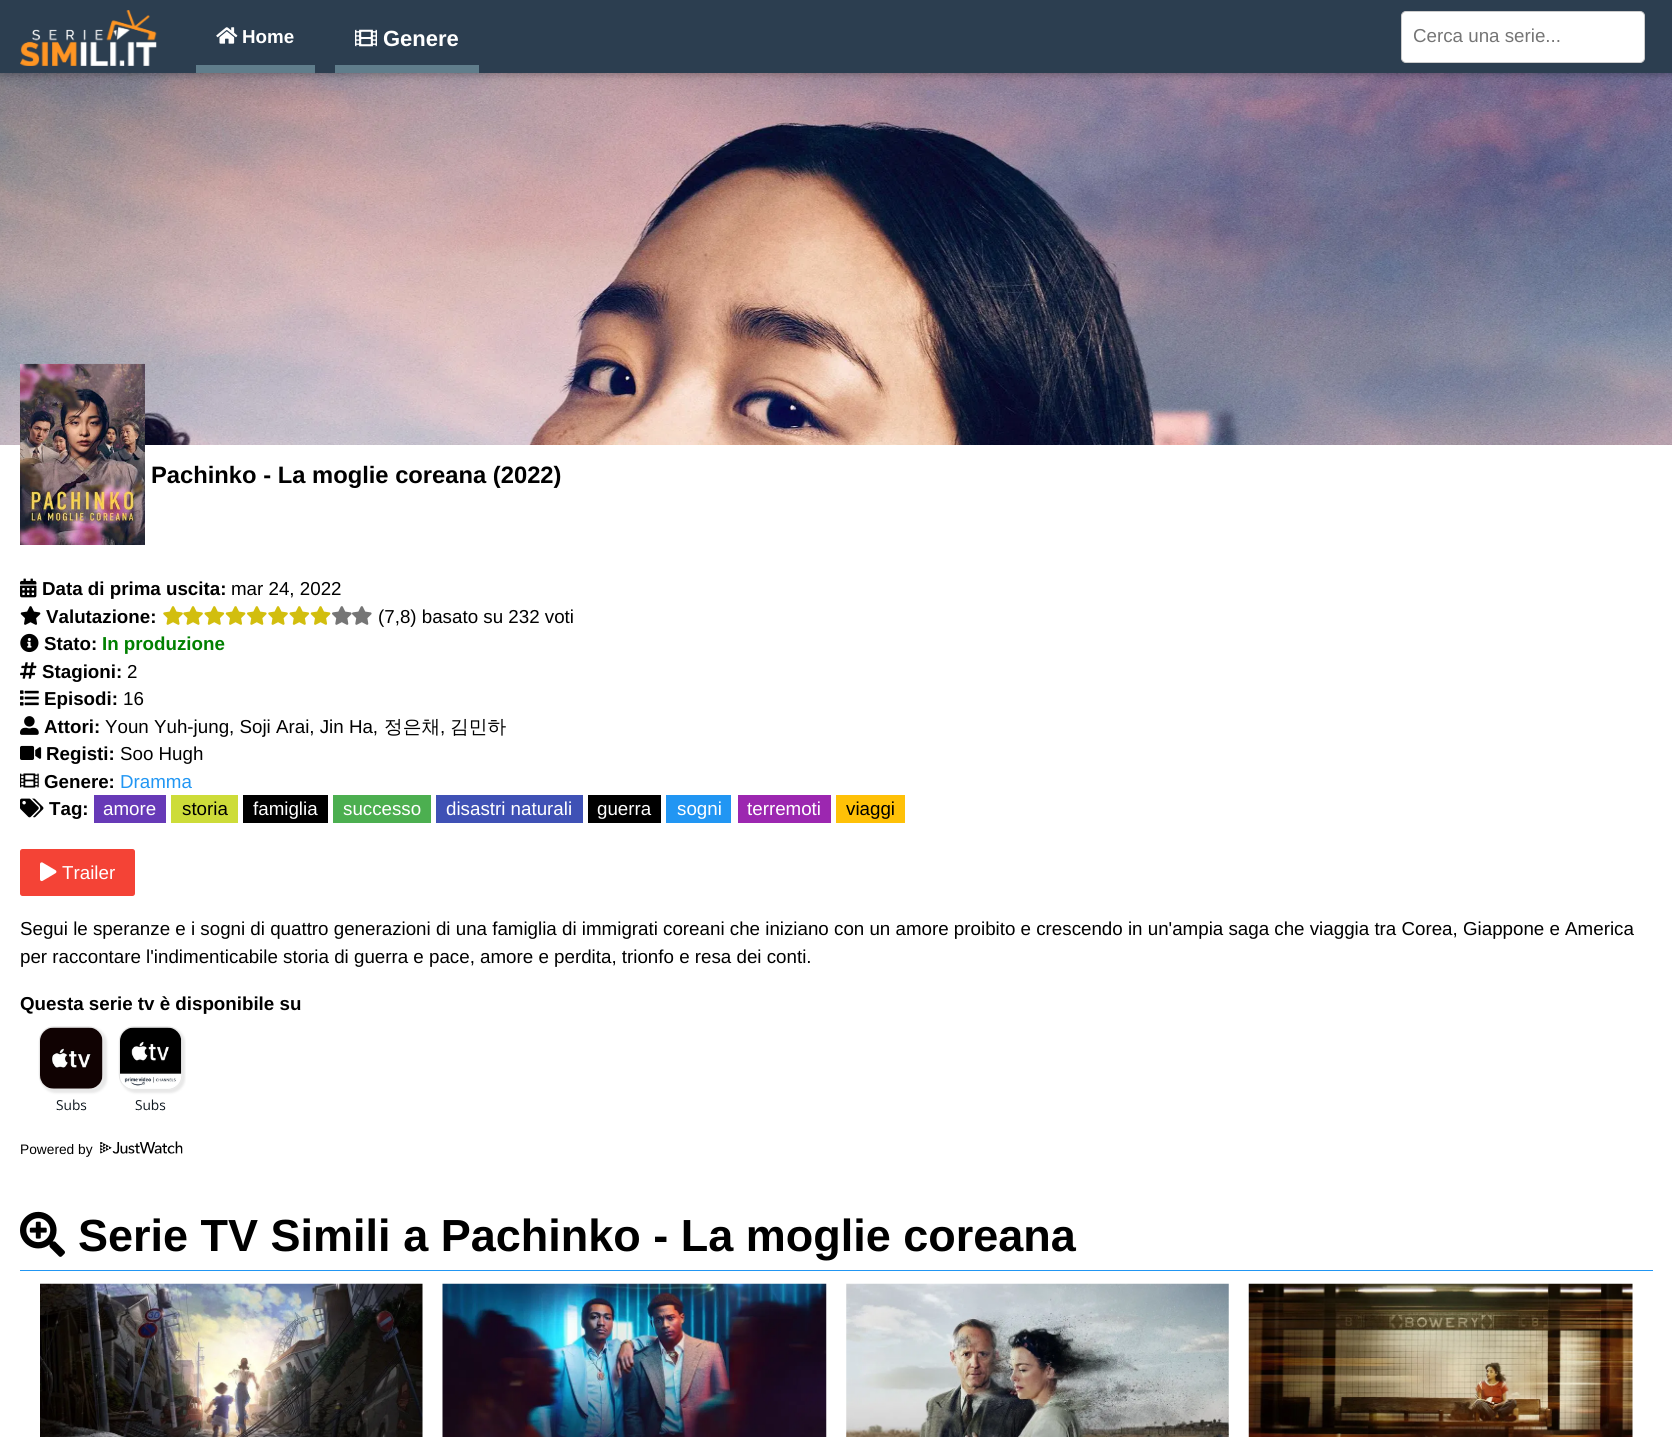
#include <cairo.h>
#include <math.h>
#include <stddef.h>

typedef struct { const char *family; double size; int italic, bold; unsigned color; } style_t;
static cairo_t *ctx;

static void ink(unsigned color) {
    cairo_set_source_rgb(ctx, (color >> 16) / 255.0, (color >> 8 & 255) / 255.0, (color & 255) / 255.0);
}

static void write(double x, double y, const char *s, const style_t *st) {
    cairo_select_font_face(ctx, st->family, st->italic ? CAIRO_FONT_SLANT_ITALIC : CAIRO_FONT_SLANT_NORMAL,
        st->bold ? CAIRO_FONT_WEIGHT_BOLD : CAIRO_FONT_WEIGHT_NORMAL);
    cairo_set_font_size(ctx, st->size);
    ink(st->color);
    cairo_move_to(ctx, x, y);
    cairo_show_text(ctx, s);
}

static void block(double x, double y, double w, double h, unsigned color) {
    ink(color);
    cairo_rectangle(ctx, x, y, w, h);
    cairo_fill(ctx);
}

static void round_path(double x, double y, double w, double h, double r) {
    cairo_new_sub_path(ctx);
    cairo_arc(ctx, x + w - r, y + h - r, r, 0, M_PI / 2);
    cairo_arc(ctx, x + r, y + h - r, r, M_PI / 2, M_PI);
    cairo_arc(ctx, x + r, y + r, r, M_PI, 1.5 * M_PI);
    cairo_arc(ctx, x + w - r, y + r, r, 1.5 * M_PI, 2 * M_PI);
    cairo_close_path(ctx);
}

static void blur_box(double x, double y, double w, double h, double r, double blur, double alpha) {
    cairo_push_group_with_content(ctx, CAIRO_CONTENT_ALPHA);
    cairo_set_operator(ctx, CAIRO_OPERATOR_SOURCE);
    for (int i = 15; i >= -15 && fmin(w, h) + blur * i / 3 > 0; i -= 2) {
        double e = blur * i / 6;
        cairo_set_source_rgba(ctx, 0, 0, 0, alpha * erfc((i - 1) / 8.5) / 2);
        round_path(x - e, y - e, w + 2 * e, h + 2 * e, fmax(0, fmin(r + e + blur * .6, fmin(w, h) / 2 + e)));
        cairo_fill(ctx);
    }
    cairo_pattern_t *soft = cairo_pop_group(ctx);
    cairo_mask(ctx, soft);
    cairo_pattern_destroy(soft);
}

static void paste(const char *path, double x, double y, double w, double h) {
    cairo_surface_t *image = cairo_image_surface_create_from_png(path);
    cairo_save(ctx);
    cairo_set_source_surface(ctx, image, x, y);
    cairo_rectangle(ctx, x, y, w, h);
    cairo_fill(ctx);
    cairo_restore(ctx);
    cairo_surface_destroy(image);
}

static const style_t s1 = {"Liberation Sans", 18.75, 0, 1, 0xffffff};
static const style_t s2 = {"Liberation Sans", 22, 0, 1, 0xffffff};
static const style_t s3 = {"Liberation Sans", 18.75, 0, 0, 0x757575};
static const style_t s4 = {"Liberation Sans", 23.75, 0, 1, 0x000000};
static const style_t s5 = {"Liberation Sans", 18.75, 0, 1, 0x000000};
static const style_t s6 = {"Liberation Sans", 18.75, 0, 0, 0x000000};
static const style_t s7 = {"Liberation Sans", 18.75, 0, 1, 0x008000};
static const style_t s8 = {"WenQuanYi Zen Hei Medium", 18.75, 0, 0, 0x000000};
static const style_t s9 = {"Liberation Sans", 18.75, 0, 0, 0x2196f3};
static const style_t s10 = {"Liberation Sans", 18.75, 0, 0, 0xffffff};
static const style_t s11 = {"Liberation Sans", 13.75, 0, 0, 0x000000};
static const style_t s12 = {"Liberation Sans", 45, 0, 1, 0x000000};

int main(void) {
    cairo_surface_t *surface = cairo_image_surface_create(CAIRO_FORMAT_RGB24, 1672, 1437);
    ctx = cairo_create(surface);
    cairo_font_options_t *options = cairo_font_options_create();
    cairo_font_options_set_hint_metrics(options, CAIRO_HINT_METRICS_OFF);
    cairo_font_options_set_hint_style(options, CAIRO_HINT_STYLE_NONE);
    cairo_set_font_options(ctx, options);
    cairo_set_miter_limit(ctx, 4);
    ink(0xffffff);
    cairo_paint(ctx);
    paste("pic4.png", 0, 73, 1672, 372);
    ink(0x000000);
    blur_box(0, 3, 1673, 72, 0, 6, 0.12);
    blur_box(0, 3, 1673, 72, 0, 3, 0.16);
    block(0, 0, 1672, 73, 0x2c3e50);
    paste("pic1.png", 20, 10, 137, 56);
    block(196, 65, 119, 8, 0x607d8b);
    paste("pic2.png", 216, 27, 22, 17);
    write(242, 43, "Home", &s1);
    block(335, 65, 144, 8, 0x607d8b);
    paste("pic3.png", 355, 29, 22, 18);
    write(383, 46, "Genere", &s2);
    round_path(1401.5, 11.5, 243, 51, 4.5);
    cairo_fill_preserve(ctx);
    ink(0xcccccc);
    cairo_set_line_width(ctx, 1);
    cairo_stroke(ctx);
    write(1413, 42, "Cerca una serie...", &s3);
    paste("pic5.png", 20, 363, 125, 182);
    write(151, 483, "Pachinko - La moglie coreana (2022)", &s4);
    paste("pic6.png", 20, 578, 17, 20);
    write(42, 595, "Data di prima uscita:", &s5);
    write(231, 595, "mar 24, 2022", &s6);
    paste("pic7.png", 20, 606, 21, 19);
    write(46, 623, "Valutazione:", &s5);
    paste("pic8.png", 163, 606, 20, 19);
    paste("pic8.png", 183, 606, 20, 19);
    paste("pic9.png", 204, 606, 21, 19);
    paste("pic10.png", 225, 606, 21, 19);
    paste("pic11.png", 247, 606, 20, 19);
    paste("pic8.png", 268, 606, 20, 19);
    paste("pic9.png", 289, 606, 21, 19);
    paste("pic10.png", 310, 606, 21, 19);
    paste("pic12.png", 332, 606, 20, 19);
    paste("pic12.png", 352, 606, 20, 19);
    write(378, 623, "(7,8) basato su 232 voti", &s6);
    paste("pic13.png", 20, 633, 19, 20);
    write(44, 650, "Stato:", &s5);
    write(102, 650, "In produzione", &s7);
    paste("pic14.png", 20, 662, 17, 17);
    write(42, 678, "Stagioni:", &s5);
    write(127, 678, "2", &s6);
    paste("pic15.png", 20, 690, 19, 16);
    write(44, 705, "Episodi:", &s5);
    write(123, 705, "16", &s6);
    paste("pic16.png", 20, 716, 19, 19);
    write(44, 733, "Attori:", &s5);
    write(105, 733, "Youn Yuh-jung, Soji Arai, Jin Ha,", &s6);
    write(384, 733, "정은채", &s8);
    write(440, 733, ",", &s6);
    write(450, 733, "김민하", &s8);
    paste("pic17.png", 20, 745, 22, 15);
    write(46, 760, "Registi:", &s5);
    write(120, 760, "Soo Hugh", &s6);
    paste("pic18.png", 20, 773, 19, 15);
    write(44, 788, "Genere:", &s5);
    write(120, 788, "Dramma", &s9);
    paste("pic19.png", 20, 798, 24, 20);
    write(49, 815, "Tag:", &s5);
    block(94, 795, 72, 28, 0x673ab7);
    write(103, 815, "amore", &s10);
    block(171, 795, 67, 28, 0xcddc39);
    write(182, 815, "storia", &s6);
    block(243, 795, 85, 28, 0x000000);
    write(253, 815, "famiglia", &s10);
    block(333, 795, 98, 28, 0x4caf50);
    write(343, 815, "successo", &s10);
    block(436, 795, 147, 28, 0x3f51b5);
    write(446, 815, "disastri naturali", &s10);
    block(588, 795, 73, 28, 0x000000);
    write(597, 815, "guerra", &s10);
    block(666, 795, 65, 28, 0x2196f3);
    write(677, 815, "sogni", &s10);
    block(738, 795, 93, 28, 0x9c27b0);
    write(747, 815, "terremoti", &s10);
    block(836, 795, 69, 28, 0xffc107);
    write(846, 815, "viaggi", &s6);
    ink(0xf44336);
    round_path(20, 849, 115, 47, 2.5);
    cairo_fill(ctx);
    paste("pic20.png", 40, 862, 17, 20);
    write(62, 879, "Trailer", &s10);
    write(20, 935, "Segui le speranze e i sogni di quattro generazioni di una famiglia di immigrati coreani che iniziano con un amore proibito e crescendo in un'ampia saga che viaggia tra Corea, Giappone e America", &s6);
    write(20, 963, "per raccontare l'indimenticabile storia di guerra e pace, amore e perdita, trionfo e resa dei conti.", &s6);
    write(20, 1010, "Questa serie tv è disponibile su", &s5);
    paste("pic21.png", 38, 1026, 148, 85);
    write(20, 1154, "Powered by", &s11);
    paste("pic22.png", 100, 1141, 83, 13);
    block(20, 1270, 1633, 1, 0x2196f3);
    paste("pic23.png", 20, 1211, 45, 46);
    write(78, 1251, "Serie TV Simili a Pachinko - La moglie coreana", &s12);
    paste("pic24.png", 40, 1283, 383, 154);
    paste("pic25.png", 442, 1283, 385, 154);
    paste("pic26.png", 846, 1283, 383, 154);
    paste("pic27.png", 1248, 1283, 385, 154);
    cairo_surface_write_to_png(surface, "screenshot.png");
    cairo_font_options_destroy(options);
    cairo_destroy(ctx);
    cairo_surface_destroy(surface);
    return 0;
}
